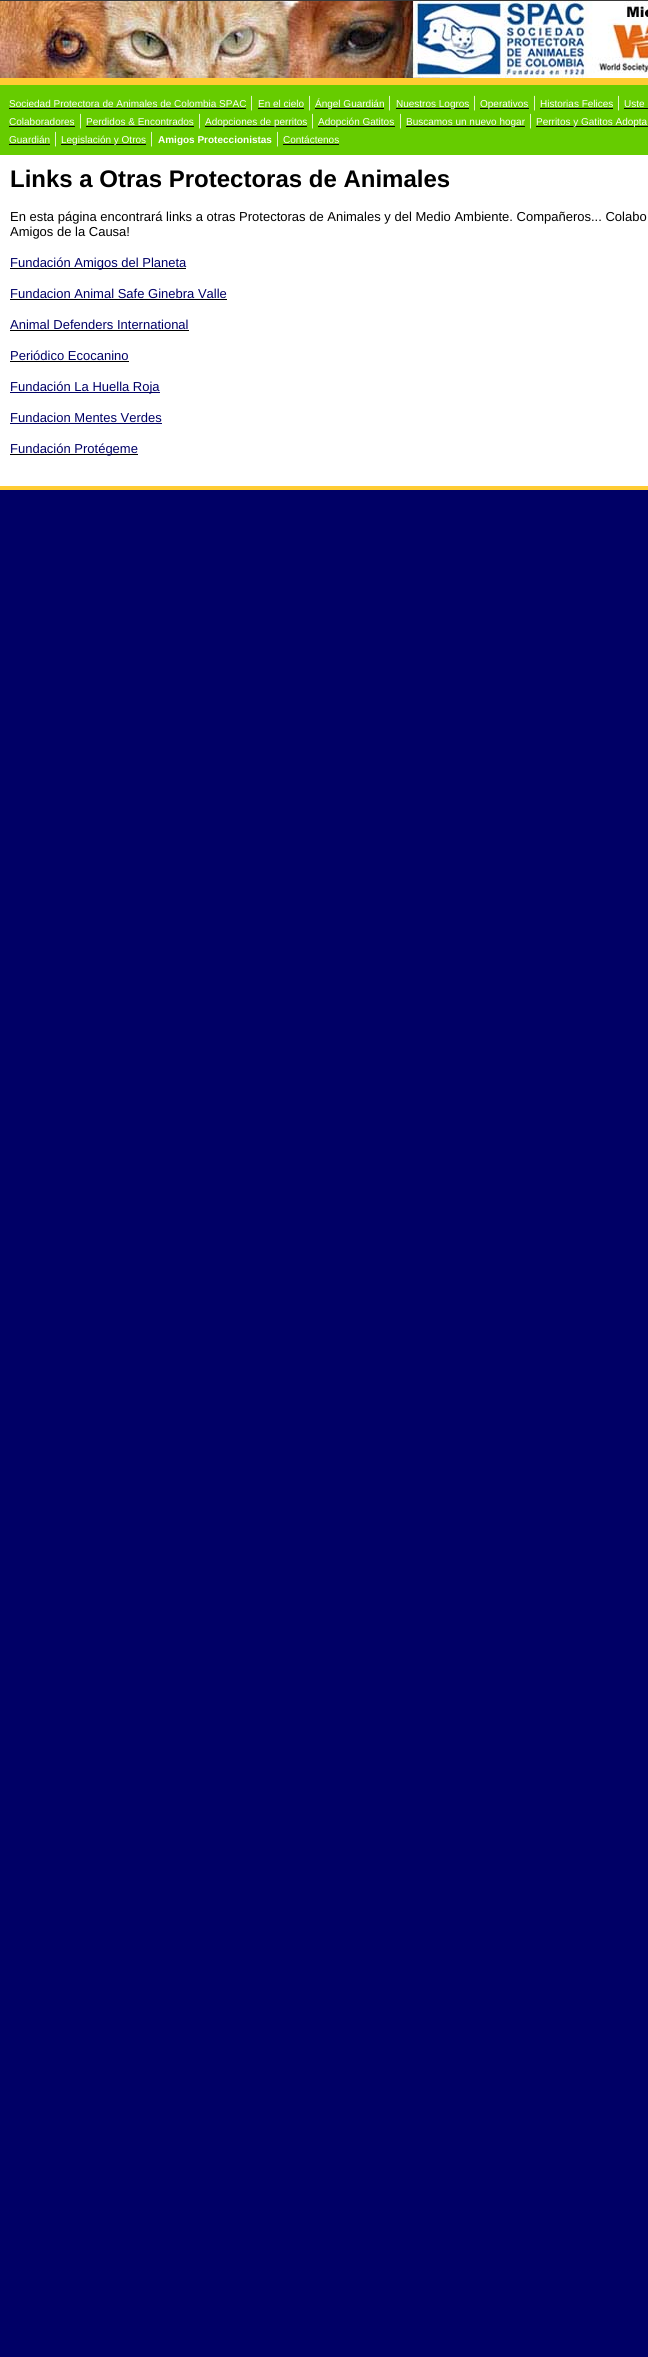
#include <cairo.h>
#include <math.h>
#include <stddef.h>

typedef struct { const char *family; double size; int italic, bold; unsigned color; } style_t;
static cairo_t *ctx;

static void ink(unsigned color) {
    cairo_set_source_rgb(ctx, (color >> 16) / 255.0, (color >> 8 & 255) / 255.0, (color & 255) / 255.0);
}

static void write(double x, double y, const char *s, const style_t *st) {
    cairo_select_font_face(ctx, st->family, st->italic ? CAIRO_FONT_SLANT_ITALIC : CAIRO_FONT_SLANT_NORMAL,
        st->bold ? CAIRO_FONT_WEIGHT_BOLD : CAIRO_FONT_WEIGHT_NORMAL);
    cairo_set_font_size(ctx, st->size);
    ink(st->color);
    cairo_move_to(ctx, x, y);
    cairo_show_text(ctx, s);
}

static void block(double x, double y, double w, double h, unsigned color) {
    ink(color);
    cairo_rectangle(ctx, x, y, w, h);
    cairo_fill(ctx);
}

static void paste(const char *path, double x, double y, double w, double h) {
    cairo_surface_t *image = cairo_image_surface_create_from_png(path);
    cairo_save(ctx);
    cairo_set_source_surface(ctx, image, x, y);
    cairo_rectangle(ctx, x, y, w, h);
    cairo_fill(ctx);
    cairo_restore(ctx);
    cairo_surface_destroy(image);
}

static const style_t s1 = {"Liberation Sans", 10, 0, 0, 0xffffff};
static const style_t s2 = {"Liberation Serif", 16, 0, 0, 0xffffff};
static const style_t s3 = {"Liberation Sans", 10, 0, 1, 0xffffff};
static const style_t s4 = {"Liberation Sans", 24, 0, 1, 0x000000};
static const style_t s5 = {"Liberation Sans", 13, 0, 0, 0x000000};
static const style_t s6 = {"Liberation Sans", 13, 0, 0, 0x000066};

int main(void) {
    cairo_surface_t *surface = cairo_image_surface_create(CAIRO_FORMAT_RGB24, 648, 2357);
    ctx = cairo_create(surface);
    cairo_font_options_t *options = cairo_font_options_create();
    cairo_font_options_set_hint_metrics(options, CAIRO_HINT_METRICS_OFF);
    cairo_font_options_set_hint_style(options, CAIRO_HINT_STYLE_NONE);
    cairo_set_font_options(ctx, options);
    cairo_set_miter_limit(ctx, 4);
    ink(0x000066);
    cairo_paint(ctx);
    block(0, 0, 648, 1, 0x393939);
    block(0, 78, 648, 7, 0xffcc33);
    paste("pic1.png", 0, 1, 648, 77);
    block(0, 85, 648, 70, 0x66cc00);
    write(9, 107, "Sociedad Protectora de Animales de Colombia SPAC", &s1);
    block(9, 108, 237, 1, 0x000000);
    write(250, 107, "|", &s2);
    write(258, 107, "En el cielo", &s1);
    block(258, 108, 46, 1, 0x000000);
    write(308, 107, "|", &s2);
    block(315, 108, 69, 1, 0x000000);
    write(315, 107, "Ángel Guardián", &s1);
    write(388, 107, "|", &s2);
    block(396, 108, 73, 1, 0x000000);
    write(396, 107, "Nuestros Logros", &s1);
    write(473, 107, "|", &s2);
    block(480, 108, 49, 1, 0x000000);
    write(480, 107, "Operativos", &s1);
    write(533, 107, "|", &s2);
    write(540, 107, "Historias Felices", &s1);
    block(540, 108, 73, 1, 0x000000);
    write(617, 107, "|", &s2);
    write(624, 107, "Uste", &s1);
    block(624, 108, 24, 1, 0x000000);
    write(9, 125, "Colaboradores", &s1);
    block(9, 126, 66, 1, 0x000000);
    write(79, 125, "|", &s2);
    write(86, 125, "Perdidos & Encontrados", &s1);
    block(86, 126, 108, 1, 0x000000);
    write(198, 125, "|", &s2);
    block(205, 126, 102, 1, 0x000000);
    write(205, 125, "Adopciones de perritos", &s1);
    write(311, 125, "|", &s2);
    block(318, 126, 77, 1, 0x000000);
    write(318, 125, "Adopción Gatitos", &s1);
    write(399, 125, "|", &s2);
    block(406, 126, 119, 1, 0x000000);
    write(406, 125, "Buscamos un nuevo hogar", &s1);
    write(529, 125, "|", &s2);
    block(536, 126, 112, 1, 0x000000);
    write(536, 125, "Perritos y Gatitos Adopta", &s1);
    write(9, 143, "Guardián", &s1);
    block(9, 144, 41, 1, 0x000000);
    write(54, 143, "|", &s2);
    block(61, 144, 85, 1, 0x000000);
    write(61, 143, "Legislación y Otros", &s1);
    write(150, 143, "|", &s2);
    write(158, 143, "Amigos Proteccionistas", &s3);
    write(276, 143, "|", &s2);
    write(283, 143, "Contáctenos", &s1);
    block(283, 144, 56, 1, 0x000000);
    block(0, 155, 648, 331, 0xffffff);
    write(10, 187, "Links a Otras Protectoras de Animales", &s4);
    write(10, 221, "En esta página encontrará links a otras Protectoras de Animales y del Medio Ambiente. Compañeros... Colabo", &s5);
    write(10, 236, "Amigos de la Causa!", &s5);
    block(10, 268, 176, 1, 0x000000);
    write(10, 267, "Fundación Amigos del Planeta", &s6);
    write(10, 298, "Fundacion Animal Safe Ginebra Valle", &s6);
    block(10, 299, 217, 1, 0x000000);
    write(10, 329, "Animal Defenders International", &s6);
    block(10, 330, 179, 1, 0x000000);
    write(10, 360, "Periódico Ecocanino", &s6);
    block(10, 361, 119, 1, 0x000000);
    block(10, 392, 150, 1, 0x000066);
    write(10, 391, "Fundación La Huella Roja", &s6);
    write(10, 422, "Fundacion Mentes Verdes", &s6);
    block(10, 423, 152, 1, 0x000066);
    block(10, 454, 128, 1, 0x000000);
    write(10, 453, "Fundación Protégeme", &s6);
    block(0, 486, 648, 4, 0xffcc33);
    cairo_surface_write_to_png(surface, "screenshot.png");
    cairo_font_options_destroy(options);
    cairo_destroy(ctx);
    cairo_surface_destroy(surface);
    return 0;
}
